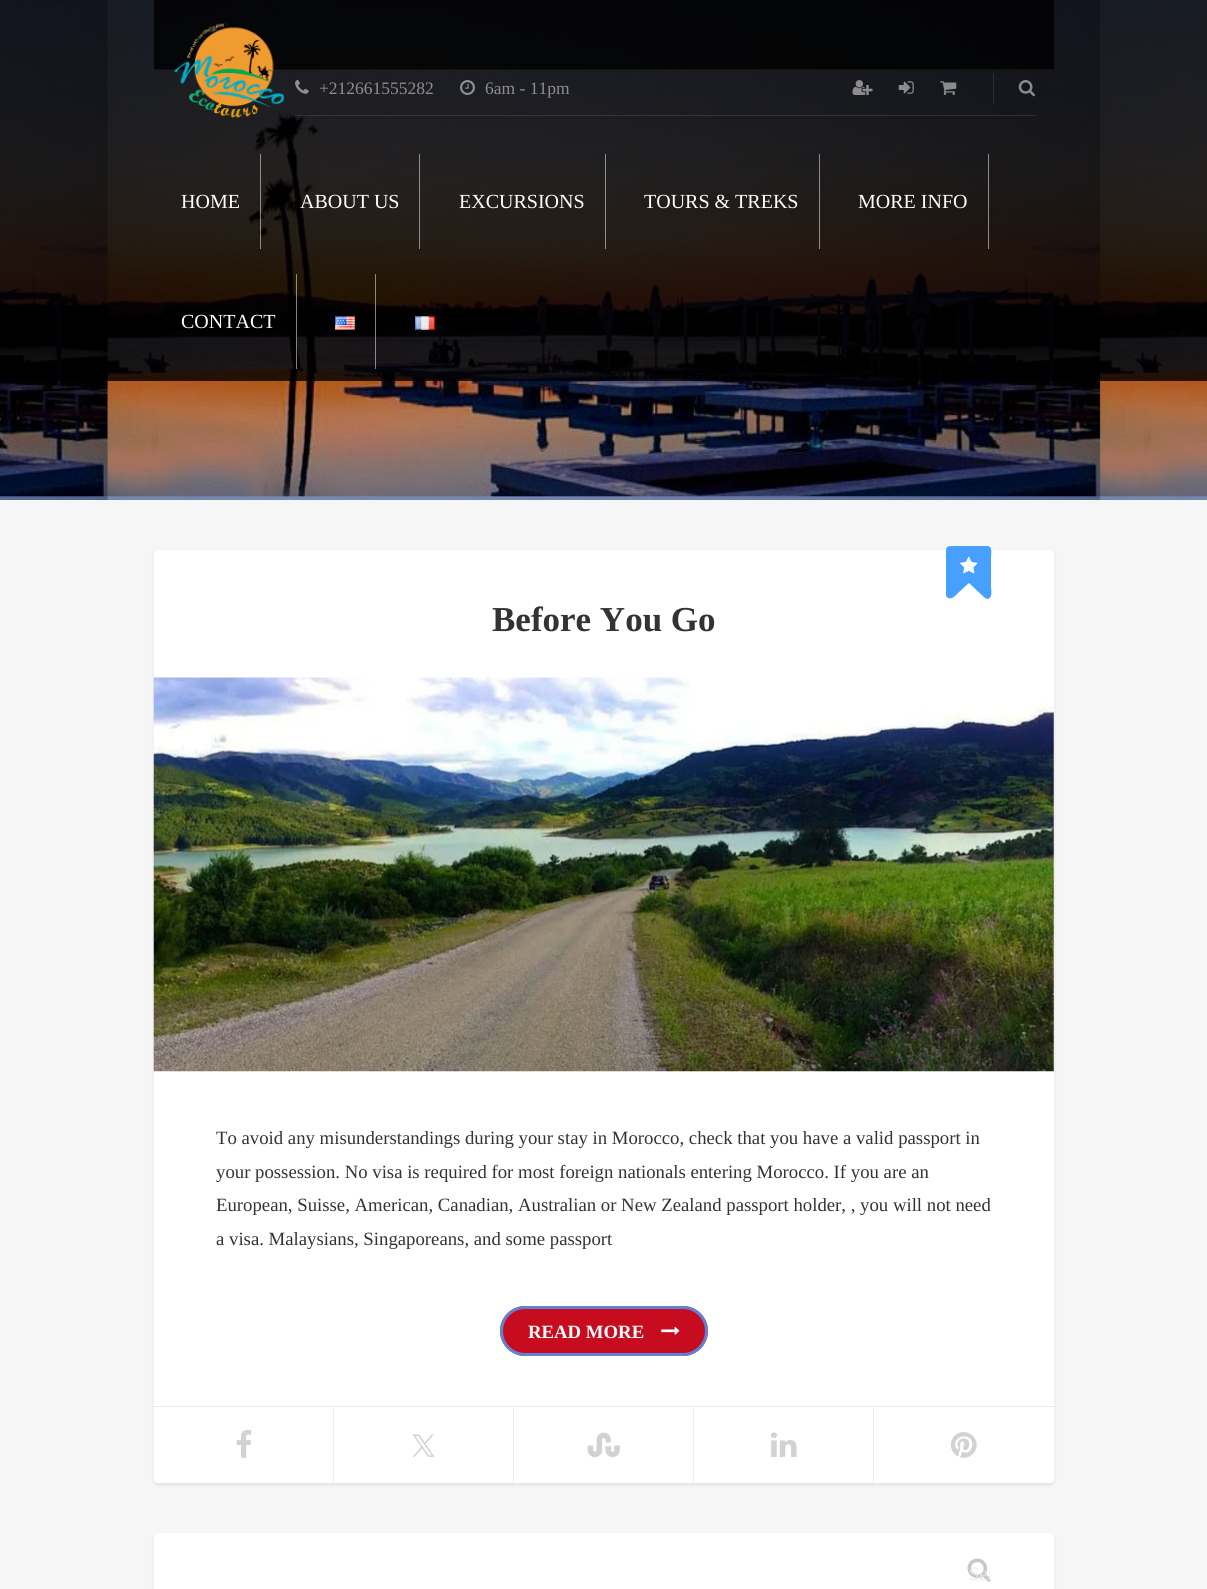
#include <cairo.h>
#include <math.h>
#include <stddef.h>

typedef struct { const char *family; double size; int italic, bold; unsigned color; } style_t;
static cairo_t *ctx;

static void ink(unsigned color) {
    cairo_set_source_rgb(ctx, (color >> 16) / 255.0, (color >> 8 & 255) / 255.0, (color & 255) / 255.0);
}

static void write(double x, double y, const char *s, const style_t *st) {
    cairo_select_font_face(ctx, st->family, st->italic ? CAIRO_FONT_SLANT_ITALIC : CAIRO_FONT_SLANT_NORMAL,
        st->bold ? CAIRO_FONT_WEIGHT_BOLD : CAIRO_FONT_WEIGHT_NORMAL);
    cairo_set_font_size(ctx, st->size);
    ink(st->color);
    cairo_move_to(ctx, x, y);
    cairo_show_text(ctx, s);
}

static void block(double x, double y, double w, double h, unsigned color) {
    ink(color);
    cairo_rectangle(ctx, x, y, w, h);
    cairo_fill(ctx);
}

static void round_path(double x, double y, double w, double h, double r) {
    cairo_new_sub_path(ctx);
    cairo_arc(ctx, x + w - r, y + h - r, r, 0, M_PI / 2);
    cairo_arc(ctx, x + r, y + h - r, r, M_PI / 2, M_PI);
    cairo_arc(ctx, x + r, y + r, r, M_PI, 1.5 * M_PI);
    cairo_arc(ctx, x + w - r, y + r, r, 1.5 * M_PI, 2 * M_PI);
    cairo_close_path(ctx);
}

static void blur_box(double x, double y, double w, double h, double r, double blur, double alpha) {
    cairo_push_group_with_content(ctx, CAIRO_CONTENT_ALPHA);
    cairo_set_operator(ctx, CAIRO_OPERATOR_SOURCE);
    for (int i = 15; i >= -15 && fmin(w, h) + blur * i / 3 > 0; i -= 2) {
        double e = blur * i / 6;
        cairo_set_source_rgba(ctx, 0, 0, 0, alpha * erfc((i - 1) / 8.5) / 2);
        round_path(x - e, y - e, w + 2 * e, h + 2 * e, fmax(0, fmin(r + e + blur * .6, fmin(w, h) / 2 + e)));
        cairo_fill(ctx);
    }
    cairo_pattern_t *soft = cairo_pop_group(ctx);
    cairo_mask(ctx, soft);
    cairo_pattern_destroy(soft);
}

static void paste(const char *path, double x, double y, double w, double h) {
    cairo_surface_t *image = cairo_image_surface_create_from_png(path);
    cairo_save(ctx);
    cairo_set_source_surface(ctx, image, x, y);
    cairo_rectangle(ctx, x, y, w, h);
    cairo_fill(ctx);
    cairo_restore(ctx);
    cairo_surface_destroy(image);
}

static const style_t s1 = {"Liberation Serif", 17.5, 0, 0, 0x8e8e91};
static const style_t s2 = {"Liberation Serif", 20, 0, 0, 0xffffff};
static const style_t s3 = {"Liberation Serif", 35, 0, 1, 0x333333};
static const style_t s4 = {"Liberation Serif", 18.75, 0, 0, 0x333333};
static const style_t s5 = {"Liberation Serif", 18.75, 0, 1, 0xffffff};
static const style_t s6 = {"Liberation Serif", 18.75, 0, 0, 0xe7e7e7};

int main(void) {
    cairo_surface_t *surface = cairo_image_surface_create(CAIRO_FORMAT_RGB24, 1207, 1589);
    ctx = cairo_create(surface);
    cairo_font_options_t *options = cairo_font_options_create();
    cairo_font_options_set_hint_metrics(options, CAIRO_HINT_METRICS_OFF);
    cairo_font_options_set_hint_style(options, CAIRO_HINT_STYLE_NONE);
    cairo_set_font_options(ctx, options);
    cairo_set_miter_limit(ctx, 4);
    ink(0xf6f6f6);
    cairo_paint(ctx);
    paste("pic1.png", 0, 0, 1207, 500);
    cairo_set_source_rgba(ctx, 0, 0, 0, 0.8);
    cairo_rectangle(ctx, 154, 0, 900, 70);
    cairo_fill(ctx);
    cairo_set_source_rgba(ctx, 1, 1, 1, 0.25);
    cairo_rectangle(ctx, 154, 69, 900, 1);
    cairo_fill(ctx);
    cairo_set_source_rgba(ctx, 0, 0, 0, 0.8);
    cairo_rectangle(ctx, 0, 0, 1207, 381);
    cairo_fill(ctx);
    paste("pic2.png", 174, 22, 111, 96);
    paste("pic3.png", 295, 80, 14, 14);
    write(319, 94, "+212661555282", &s1);
    paste("pic4.png", 460, 80, 15, 15);
    write(485, 94, "6am - 11pm", &s1);
    paste("pic5.png", 852, 80, 21, 15);
    paste("pic6.png", 898, 81, 16, 13);
    paste("pic7.png", 940, 81, 17, 14);
    block(993, 73, 1, 31, 0x2d2e33);
    paste("pic8.png", 1018, 80, 17, 17);
    cairo_set_source_rgba(ctx, 1, 1, 1, 0.1);
    cairo_rectangle(ctx, 294, 115, 741, 1);
    cairo_fill(ctx);
    write(181, 208, "HOME", &s2);
    cairo_set_source_rgba(ctx, 1, 1, 1, 0.5);
    cairo_rectangle(ctx, 260, 154, 1, 95);
    cairo_fill(ctx);
    write(300, 208, "ABOUT US", &s2);
    cairo_set_source_rgba(ctx, 1, 1, 1, 0.5);
    cairo_rectangle(ctx, 419, 154, 1, 95);
    cairo_fill(ctx);
    write(459, 208, "EXCURSIONS", &s2);
    cairo_set_source_rgba(ctx, 1, 1, 1, 0.5);
    cairo_rectangle(ctx, 605, 154, 1, 95);
    cairo_fill(ctx);
    write(644, 208, "TOURS & TREKS", &s2);
    cairo_set_source_rgba(ctx, 1, 1, 1, 0.5);
    cairo_rectangle(ctx, 819, 154, 1, 95);
    cairo_fill(ctx);
    write(858, 208, "MORE INFO", &s2);
    cairo_set_source_rgba(ctx, 1, 1, 1, 0.5);
    cairo_rectangle(ctx, 988, 154, 1, 95);
    cairo_fill(ctx);
    write(181, 328, "CONTACT", &s2);
    cairo_set_source_rgba(ctx, 1, 1, 1, 0.5);
    cairo_rectangle(ctx, 296, 274, 1, 95);
    cairo_fill(ctx);
    paste("pic9.png", 335, 316, 20, 14);
    cairo_rectangle(ctx, 375, 274, 1, 95);
    cairo_fill(ctx);
    paste("pic10.png", 415, 316, 20, 14);
    ink(0x000000);
    blur_box(154, 553, 900, 932, 4, 2, 0.09);
    ink(0xffffff);
    round_path(154, 550, 900, 933, 4);
    cairo_fill(ctx);
    ink(0x47a0ff);
    cairo_new_path(ctx);
    cairo_move_to(ctx, 987, 546);
    cairo_curve_to(ctx, 993, 546, 991, 554, 991, 557);
    cairo_line_to(ctx, 991, 587);
    cairo_curve_to(ctx, 991, 590, 993, 597, 988, 599);
    cairo_line_to(ctx, 985, 598);
    cairo_line_to(ctx, 969, 583);
    cairo_line_to(ctx, 958, 593);
    cairo_curve_to(ctx, 956, 595, 952, 600, 948, 598);
    cairo_line_to(ctx, 946, 596);
    cairo_line_to(ctx, 946, 557);
    cairo_curve_to(ctx, 946, 546, 945, 546, 956, 546);
    cairo_close_path(ctx);
    cairo_fill(ctx);
    paste("pic11.png", 960, 556, 18, 18);
    write(492, 631, "Before You Go", &s3);
    paste("pic12.png", 153, 677, 901, 395);
    write(216, 1144, "To avoid any misunderstandings during your stay in Morocco, check that you have a valid passport in", &s4);
    write(216, 1178, "your possession. No visa is required for most foreign nationals entering Morocco. If you are an", &s4);
    write(216, 1211, "European, Suisse, American, Canadian, Australian or New Zealand passport holder, , you will not need", &s4);
    write(216, 1245, "a visa. Malaysians, Singaporeans, and some passport", &s4);
    ink(0xc80c20);
    round_path(500, 1306, 208, 50, 25);
    cairo_fill(ctx);
    round_path(501.5, 1307.5, 205, 47, 23.5);
    cairo_set_source_rgba(ctx, 0.278, 0.627, 1, 0.8);
    cairo_set_line_width(ctx, 3);
    cairo_stroke(ctx);
    write(528, 1338, "READ MORE", &s5);
    paste("pic13.png", 661, 1326, 19, 9);
    block(154, 1406, 900, 1, 0xebebeb);
    block(333, 1408, 1, 75, 0xebebeb);
    paste("pic14.png", 236, 1430, 16, 28);
    block(513, 1408, 1, 75, 0xebebeb);
    paste("pic15.png", 412, 1434, 23, 23);
    block(693, 1408, 1, 75, 0xebebeb);
    paste("pic16.png", 587, 1432, 33, 26);
    block(873, 1408, 1, 75, 0xebebeb);
    paste("pic17.png", 771, 1432, 26, 25);
    paste("pic18.png", 951, 1432, 26, 26);
    ink(0x000000);
    blur_box(154, 1535, 900, 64, 4, 2, 0.09);
    ink(0xffffff);
    round_path(154, 1533, 900, 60, 4);
    cairo_fill(ctx);
    paste("pic19.png", 967, 1558, 24, 24);
    cairo_save(ctx);
    round_path(961, 1556, 29, 29, 2.5);
    cairo_clip(ctx);
    write(969, 1580, "Sea", &s6);
    cairo_restore(ctx);
    cairo_surface_write_to_png(surface, "screenshot.png");
    cairo_font_options_destroy(options);
    cairo_destroy(ctx);
    cairo_surface_destroy(surface);
    return 0;
}
